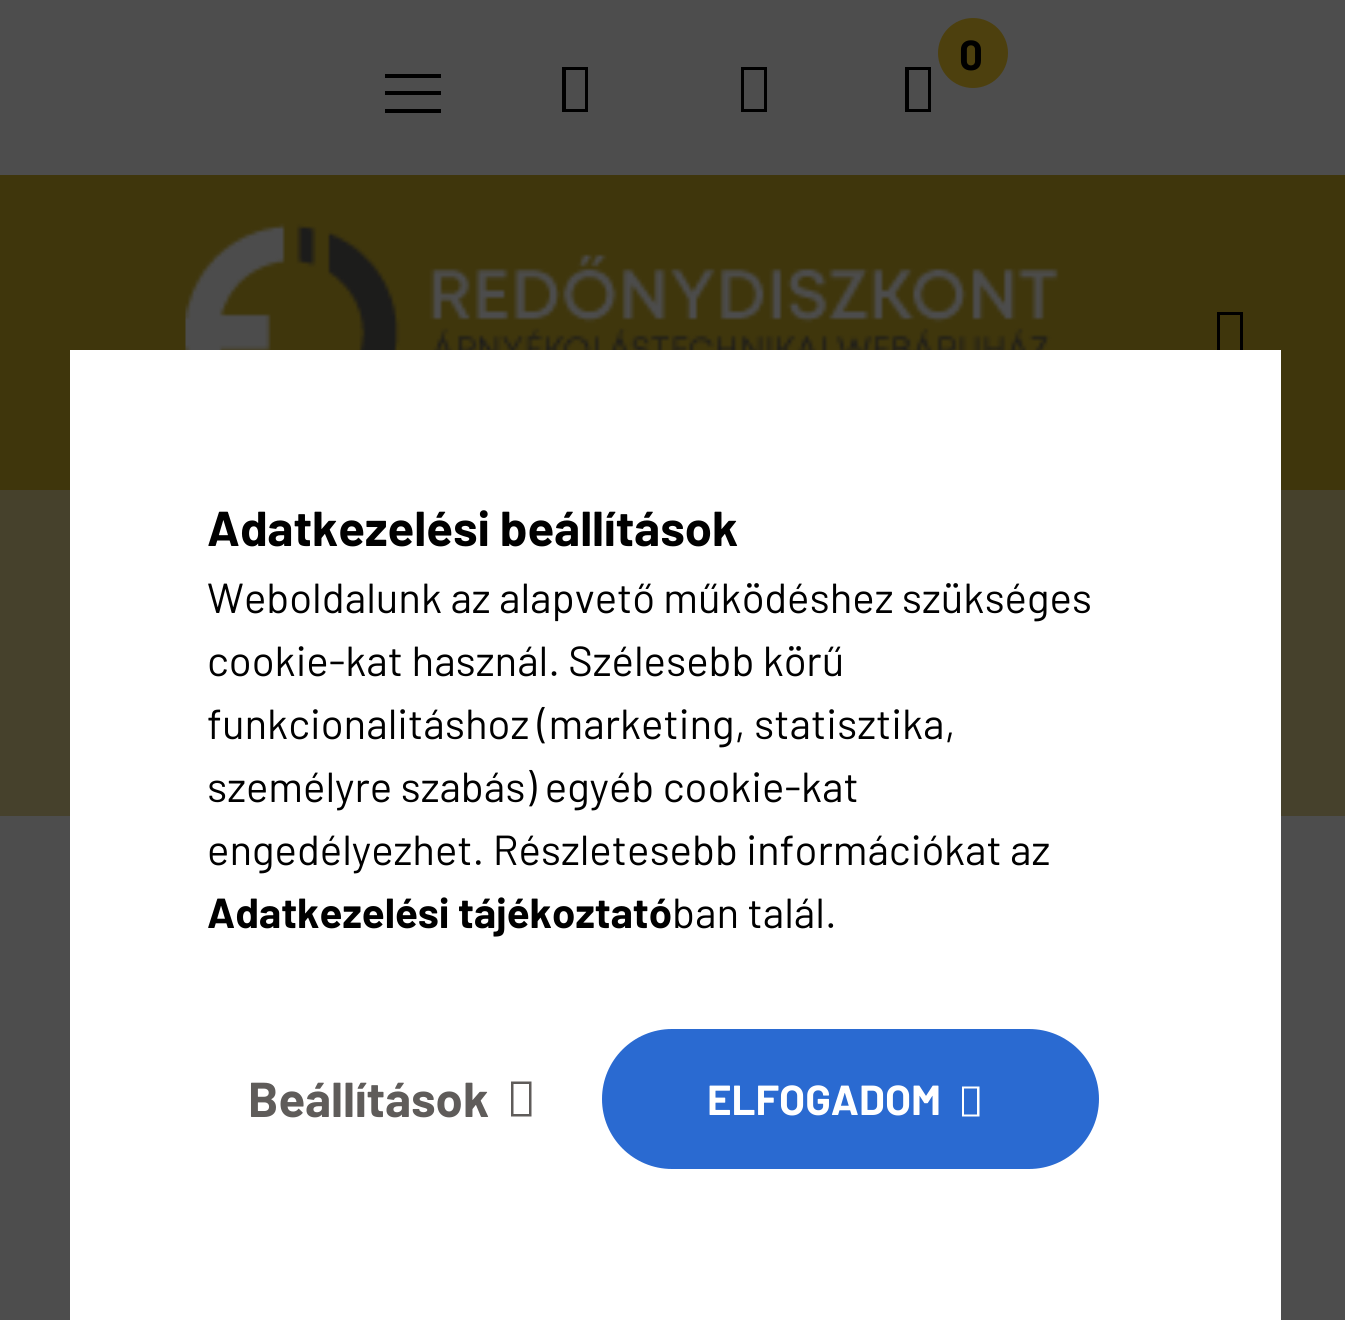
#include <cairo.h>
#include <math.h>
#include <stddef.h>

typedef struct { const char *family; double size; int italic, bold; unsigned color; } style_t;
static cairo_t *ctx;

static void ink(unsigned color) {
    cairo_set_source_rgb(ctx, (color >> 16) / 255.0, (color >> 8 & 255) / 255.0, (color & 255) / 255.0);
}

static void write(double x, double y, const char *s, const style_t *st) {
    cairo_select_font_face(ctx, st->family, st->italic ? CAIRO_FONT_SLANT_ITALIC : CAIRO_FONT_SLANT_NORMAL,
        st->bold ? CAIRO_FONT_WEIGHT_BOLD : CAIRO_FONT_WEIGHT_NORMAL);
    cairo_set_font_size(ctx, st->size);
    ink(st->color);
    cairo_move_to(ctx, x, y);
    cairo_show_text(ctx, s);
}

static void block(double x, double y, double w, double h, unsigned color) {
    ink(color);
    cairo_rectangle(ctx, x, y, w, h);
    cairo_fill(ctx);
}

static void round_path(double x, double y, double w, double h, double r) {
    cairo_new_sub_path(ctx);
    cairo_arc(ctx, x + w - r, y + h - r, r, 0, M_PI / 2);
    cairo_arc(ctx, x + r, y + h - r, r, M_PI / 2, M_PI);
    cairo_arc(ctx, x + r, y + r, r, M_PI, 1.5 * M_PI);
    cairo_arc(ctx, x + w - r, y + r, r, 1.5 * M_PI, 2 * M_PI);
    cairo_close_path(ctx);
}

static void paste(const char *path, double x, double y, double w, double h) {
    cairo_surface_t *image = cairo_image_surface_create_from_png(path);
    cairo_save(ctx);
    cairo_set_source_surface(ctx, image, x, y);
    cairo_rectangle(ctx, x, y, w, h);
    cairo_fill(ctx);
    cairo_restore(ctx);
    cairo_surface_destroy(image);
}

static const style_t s1 = {"Barlow", 42, 0, 1, 0x000000};
static const style_t s2 = {"Barlow", 49, 0, 1, 0x000000};
static const style_t s3 = {"Barlow", 42, 0, 0, 0x000000};
static const style_t s4 = {"Barlow", 49, 0, 1, 0x5f5c5a};
static const style_t s5 = {"Barlow", 42, 0, 1, 0xffffff};

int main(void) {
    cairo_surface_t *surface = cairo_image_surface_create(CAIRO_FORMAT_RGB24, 1345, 1320);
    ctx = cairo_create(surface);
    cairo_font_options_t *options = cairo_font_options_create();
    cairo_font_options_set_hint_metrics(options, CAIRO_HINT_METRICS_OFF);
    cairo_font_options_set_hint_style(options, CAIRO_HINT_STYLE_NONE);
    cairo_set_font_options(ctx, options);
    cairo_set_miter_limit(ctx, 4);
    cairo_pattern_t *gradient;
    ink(0x4d4d4d);
    cairo_paint(ctx);
    ink(0x4d400e);
    cairo_arc(ctx, 973, 53, 35, 0, 2 * M_PI);
    cairo_fill(ctx);
    write(959, 70, "0", &s1);
    cairo_new_path(ctx);
    cairo_move_to(ctx, 905, 112);
    cairo_line_to(ctx, 905, 67);
    cairo_line_to(ctx, 931, 67);
    cairo_line_to(ctx, 931, 112);
    cairo_close_path(ctx);
    cairo_move_to(ctx, 909, 109);
    cairo_line_to(ctx, 928, 109);
    cairo_line_to(ctx, 928, 70);
    cairo_line_to(ctx, 909, 70);
    cairo_close_path(ctx);
    cairo_fill(ctx);
    block(385, 74, 56, 4, 0x000000);
    block(385, 91, 56, 4, 0x000000);
    block(385, 109, 56, 4, 0x000000);
    cairo_new_path(ctx);
    cairo_move_to(ctx, 562, 112);
    cairo_line_to(ctx, 562, 67);
    cairo_line_to(ctx, 588, 67);
    cairo_line_to(ctx, 588, 112);
    cairo_close_path(ctx);
    cairo_move_to(ctx, 566, 109);
    cairo_line_to(ctx, 585, 109);
    cairo_line_to(ctx, 585, 70);
    cairo_line_to(ctx, 566, 70);
    cairo_close_path(ctx);
    cairo_fill(ctx);
    cairo_new_path(ctx);
    cairo_move_to(ctx, 741, 112);
    cairo_line_to(ctx, 741, 67);
    cairo_line_to(ctx, 767, 67);
    cairo_line_to(ctx, 767, 112);
    cairo_close_path(ctx);
    cairo_move_to(ctx, 744, 109);
    cairo_line_to(ctx, 764, 109);
    cairo_line_to(ctx, 764, 70);
    cairo_line_to(ctx, 744, 70);
    cairo_close_path(ctx);
    cairo_fill(ctx);
    block(0, 175, 1345, 315, 0x3f360c);
    paste("pic1.png", 185, 223, 874, 127);
    ink(0x000000);
    cairo_new_path(ctx);
    cairo_move_to(ctx, 1217, 357);
    cairo_line_to(ctx, 1217, 312);
    cairo_line_to(ctx, 1243, 312);
    cairo_line_to(ctx, 1243, 357);
    cairo_close_path(ctx);
    cairo_move_to(ctx, 1220, 354);
    cairo_line_to(ctx, 1240, 354);
    cairo_line_to(ctx, 1240, 315);
    cairo_line_to(ctx, 1220, 315);
    cairo_close_path(ctx);
    cairo_fill(ctx);
    block(0, 490, 1345, 326, 0x46412c);
    block(70, 350, 1211, 970, 0xffffff);
    write(207, 546, "Adatkezelési beállítások", &s2);
    write(207, 613, "Weboldalunk az alapvető működéshez szükséges", &s3);
    write(207, 676, "cookie-kat használ. Szélesebb körű", &s3);
    write(207, 739, "funkcionalitáshoz (marketing, statisztika,", &s3);
    write(207, 802, "személyre szabás) egyéb cookie-kat", &s3);
    write(207, 865, "engedélyezhet. Részletesebb információkat az", &s3);
    write(207, 928, "Adatkezelési tájékoztató", &s1);
    write(672, 928, "ban talál.", &s3);
    write(248, 1117, "Beállítások", &s4);
    cairo_new_path(ctx);
    cairo_move_to(ctx, 511, 1116.5);
    cairo_line_to(ctx, 511, 1081.5);
    cairo_line_to(ctx, 531.5, 1081.5);
    cairo_line_to(ctx, 531.5, 1116.5);
    cairo_close_path(ctx);
    cairo_move_to(ctx, 513.5, 1114);
    cairo_line_to(ctx, 529, 1114);
    cairo_line_to(ctx, 529, 1084);
    cairo_line_to(ctx, 513.5, 1084);
    cairo_close_path(ctx);
    cairo_fill(ctx);
    gradient = cairo_pattern_create_linear(601, 1099, 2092, 1099);
    cairo_pattern_add_color_stop_rgba(gradient, 0.33, 0.165, 0.416, 0.82, 1);
    cairo_pattern_add_color_stop_rgba(gradient, 0.67, 0.369, 0.58, 0.922, 1);
    cairo_set_source(ctx, gradient);
    cairo_pattern_destroy(gradient);
    round_path(602, 1029, 497, 140, 70);
    cairo_fill(ctx);
    write(707, 1115, "ELFOGADOM", &s5);
    cairo_new_path(ctx);
    cairo_move_to(ctx, 962, 1116.5);
    cairo_line_to(ctx, 962, 1086.5);
    cairo_line_to(ctx, 979.5, 1086.5);
    cairo_line_to(ctx, 979.5, 1116.5);
    cairo_close_path(ctx);
    cairo_move_to(ctx, 964, 1114.5);
    cairo_line_to(ctx, 977, 1114.5);
    cairo_line_to(ctx, 977, 1088.5);
    cairo_line_to(ctx, 964, 1088.5);
    cairo_close_path(ctx);
    cairo_fill(ctx);
    cairo_surface_write_to_png(surface, "screenshot.png");
    cairo_font_options_destroy(options);
    cairo_destroy(ctx);
    cairo_surface_destroy(surface);
    return 0;
}
